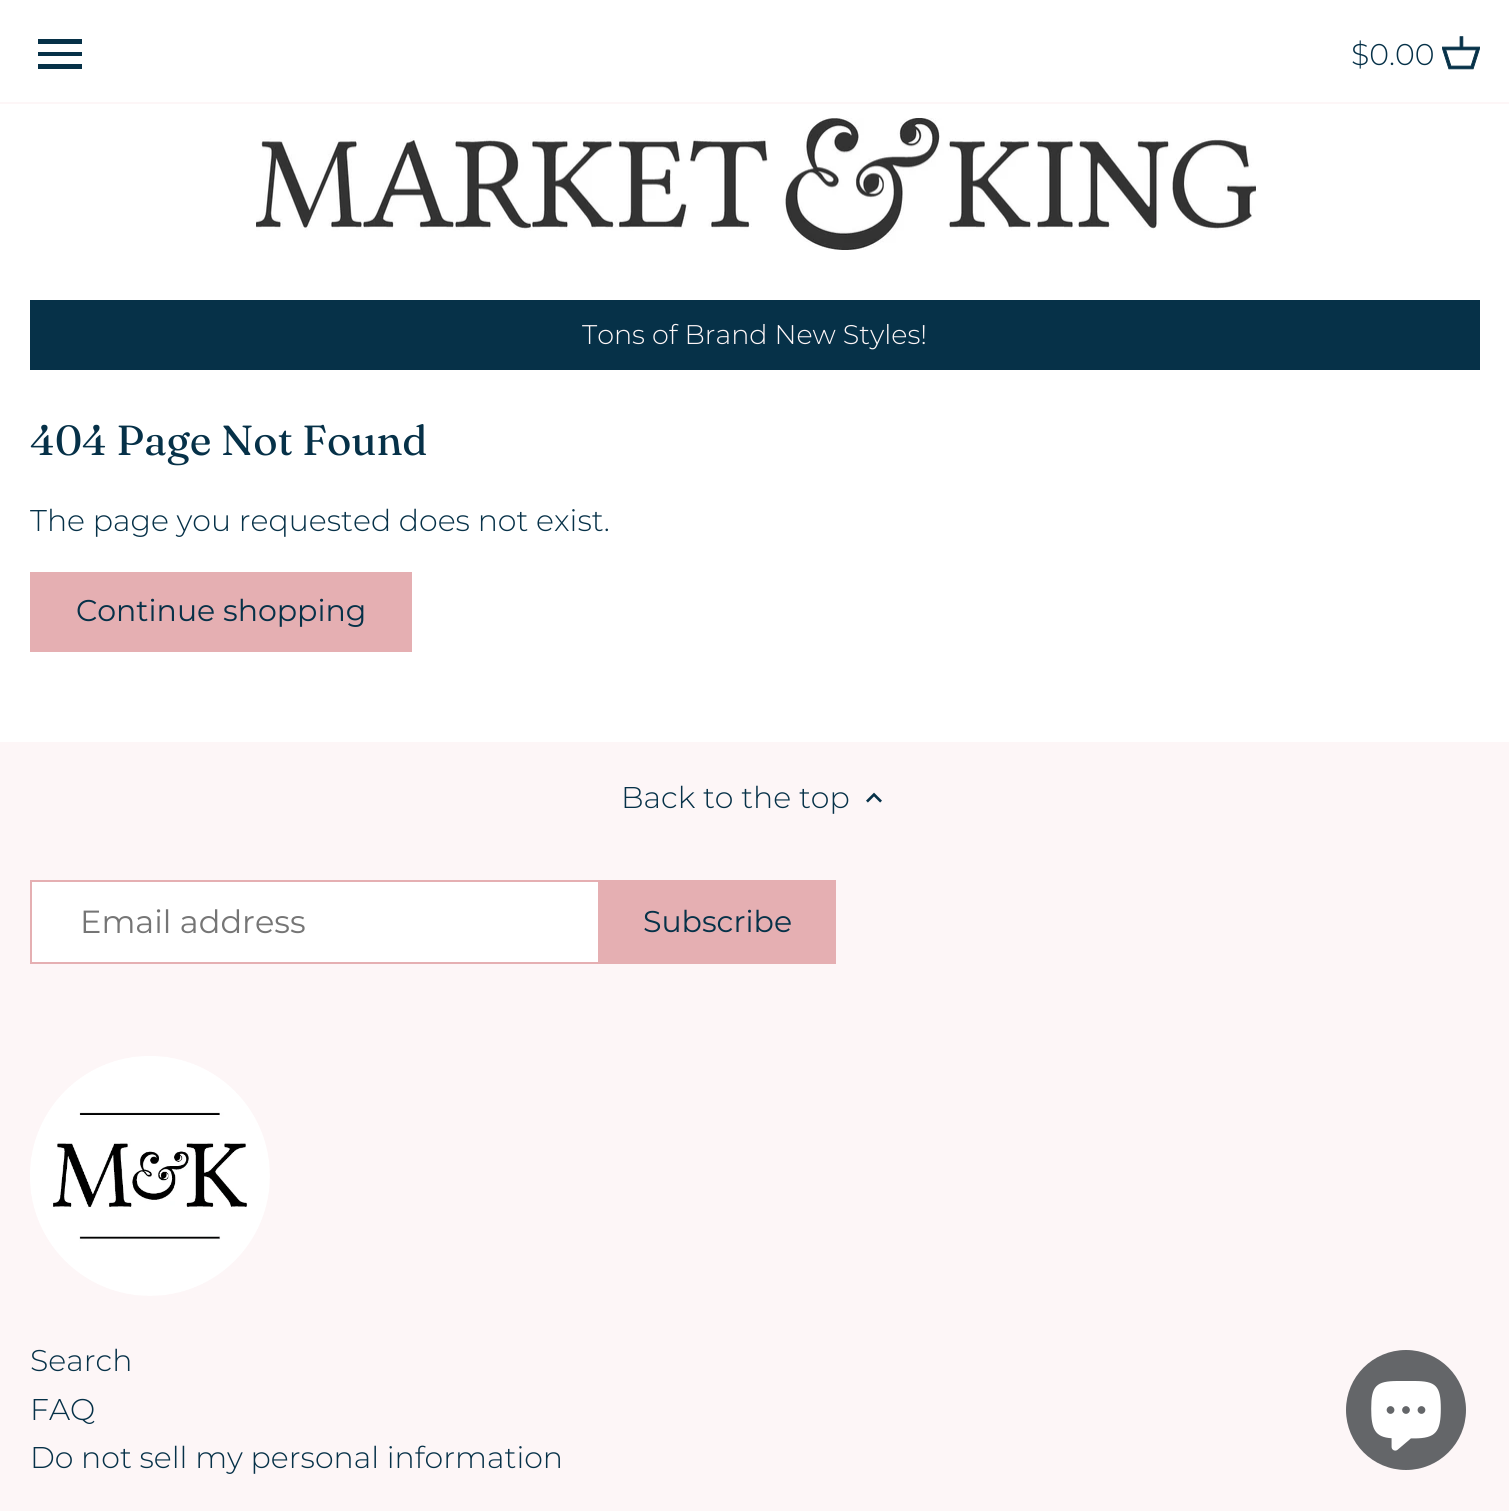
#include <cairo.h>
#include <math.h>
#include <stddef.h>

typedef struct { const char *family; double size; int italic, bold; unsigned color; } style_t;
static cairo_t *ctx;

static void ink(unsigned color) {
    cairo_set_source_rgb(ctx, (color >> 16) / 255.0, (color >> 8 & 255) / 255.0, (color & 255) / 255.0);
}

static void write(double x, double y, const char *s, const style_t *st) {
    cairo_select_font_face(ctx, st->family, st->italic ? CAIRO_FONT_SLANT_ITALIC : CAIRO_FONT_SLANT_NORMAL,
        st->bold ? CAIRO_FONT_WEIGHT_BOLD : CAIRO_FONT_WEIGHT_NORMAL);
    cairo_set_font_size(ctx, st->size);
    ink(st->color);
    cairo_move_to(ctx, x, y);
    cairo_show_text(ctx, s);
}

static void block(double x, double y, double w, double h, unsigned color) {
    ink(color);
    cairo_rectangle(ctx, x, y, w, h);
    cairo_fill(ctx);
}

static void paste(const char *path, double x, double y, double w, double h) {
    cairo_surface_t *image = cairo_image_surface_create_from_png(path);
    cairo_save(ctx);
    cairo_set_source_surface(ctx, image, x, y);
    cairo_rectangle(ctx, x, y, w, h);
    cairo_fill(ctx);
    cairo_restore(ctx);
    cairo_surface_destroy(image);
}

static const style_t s1 = {"Montserrat Light", 30, 0, 0, 0x063148};
static const style_t s2 = {"Montserrat Light", 27, 0, 0, 0xfdf6f7};
static const style_t s3 = {"Fraunces", 42, 0, 0, 0x063148};
static const style_t s4 = {"Montserrat", 30, 0, 0, 0x063148};
static const style_t s5 = {"Montserrat", 32, 0, 0, 0x757575};

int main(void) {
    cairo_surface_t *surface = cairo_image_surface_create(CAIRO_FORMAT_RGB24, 1509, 1511);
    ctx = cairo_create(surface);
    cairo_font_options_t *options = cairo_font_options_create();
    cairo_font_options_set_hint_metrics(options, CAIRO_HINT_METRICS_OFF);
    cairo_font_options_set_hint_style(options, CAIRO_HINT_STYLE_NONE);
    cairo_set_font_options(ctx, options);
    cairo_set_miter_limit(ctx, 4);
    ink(0xfdf6f7);
    cairo_paint(ctx);
    block(0, 0, 1509, 742, 0xffffff);
    block(0, 102, 1509, 2, 0xfdf6f7);
    ink(0x063148);
    cairo_new_path(ctx);
    cairo_move_to(ctx, 38, 69);
    cairo_line_to(ctx, 82, 69);
    cairo_line_to(ctx, 82, 64);
    cairo_line_to(ctx, 38, 64);
    cairo_close_path(ctx);
    cairo_move_to(ctx, 38, 56);
    cairo_line_to(ctx, 82, 56);
    cairo_line_to(ctx, 82, 52);
    cairo_line_to(ctx, 38, 52);
    cairo_close_path(ctx);
    cairo_move_to(ctx, 38, 39);
    cairo_line_to(ctx, 38, 44);
    cairo_line_to(ctx, 82, 44);
    cairo_line_to(ctx, 82, 39);
    cairo_close_path(ctx);
    cairo_fill(ctx);
    write(1351, 65, "$0.00", &s1);
    paste("pic1.png", 1442, 36, 38, 34);
    paste("pic2.png", 256, 118, 1000, 132);
    block(30, 300, 1450, 70, 0x063148);
    write(582, 344, "Tons of Brand New Styles!", &s2);
    write(30, 455, "404 Page Not Found", &s3);
    write(30, 531, "The page you requested does not exist.", &s1);
    block(30, 572, 382, 80, 0xe5afb2);
    write(76, 621, "Continue shopping", &s4);
    write(621, 808, "Back to the top", &s1);
    paste("pic3.png", 866, 792, 16, 11);
    block(32, 882, 566, 80, 0xffffff);
    cairo_rectangle(ctx, 31, 881, 802, 82);
    ink(0xe5afb2);
    cairo_stroke(ctx);
    write(80, 933, "Email address", &s5);
    block(598, 880, 238, 84, 0xe5afb2);
    write(643, 932, "Subscribe", &s4);
    paste("pic4.png", 30, 1056, 240, 240);
    write(30, 1371, "Search", &s1);
    write(30, 1420, "FAQ", &s1);
    write(30, 1468, "Do not sell my personal information", &s1);
    ink(0x646669);
    cairo_new_path(ctx);
    cairo_arc(ctx, 1406, 1410, 60, 0, 2 * M_PI);
    cairo_fill(ctx);
    paste("pic5.png", 1371, 1381, 70, 70);
    cairo_surface_write_to_png(surface, "screenshot.png");
    cairo_font_options_destroy(options);
    cairo_destroy(ctx);
    cairo_surface_destroy(surface);
    return 0;
}
